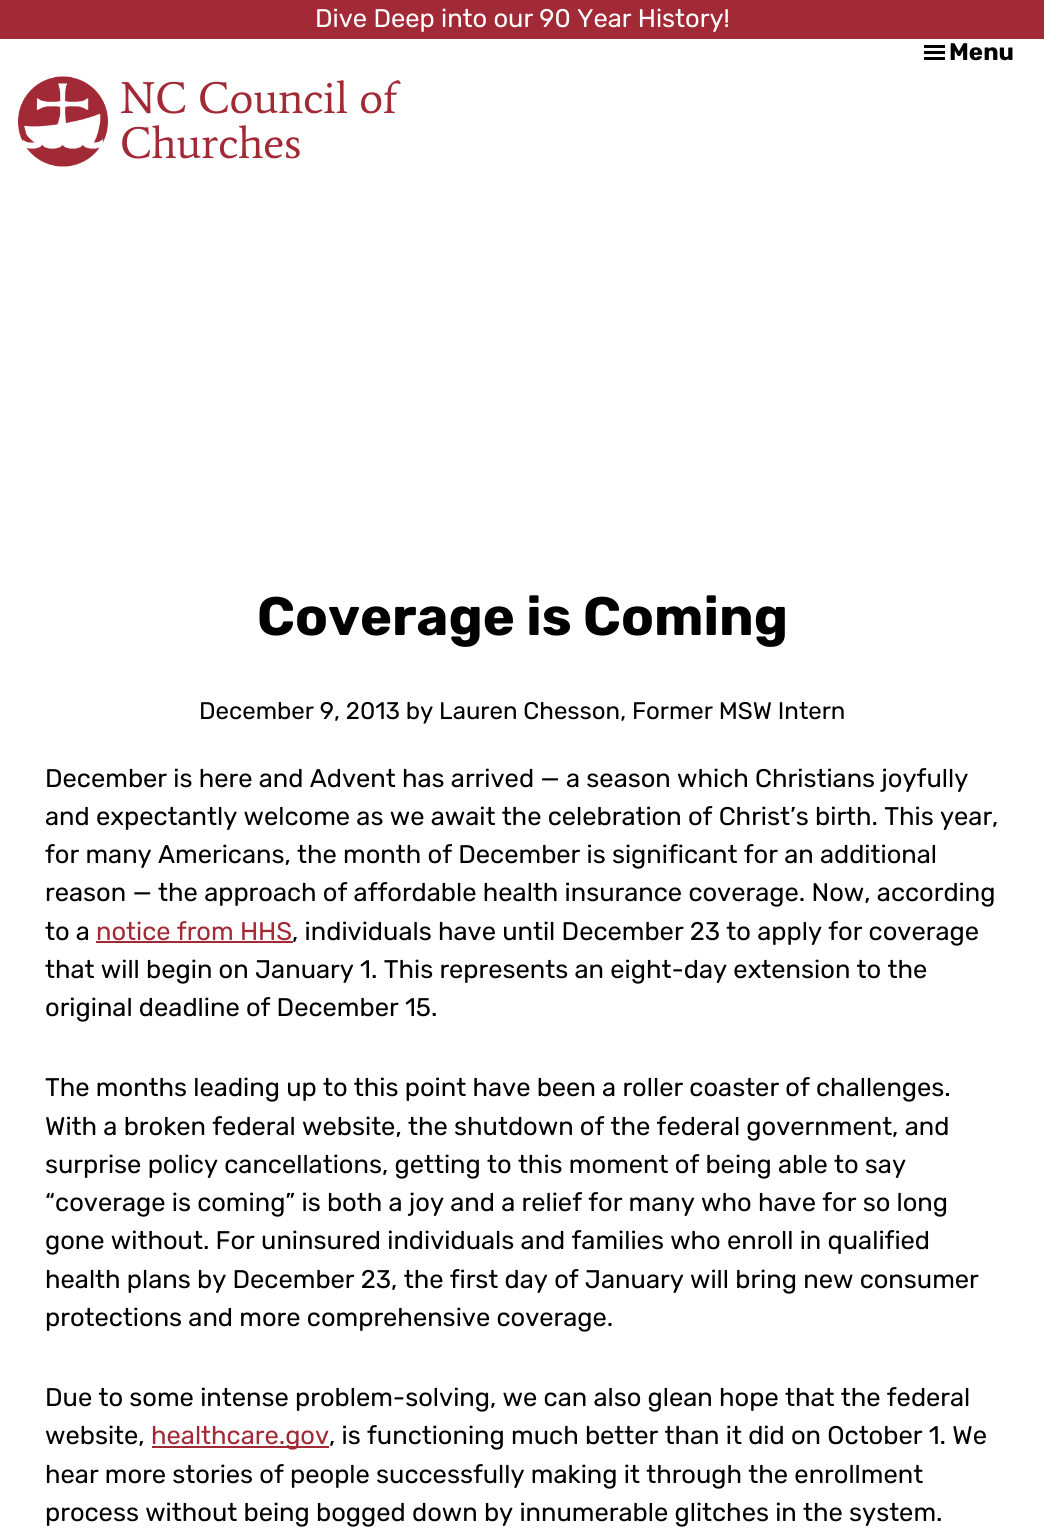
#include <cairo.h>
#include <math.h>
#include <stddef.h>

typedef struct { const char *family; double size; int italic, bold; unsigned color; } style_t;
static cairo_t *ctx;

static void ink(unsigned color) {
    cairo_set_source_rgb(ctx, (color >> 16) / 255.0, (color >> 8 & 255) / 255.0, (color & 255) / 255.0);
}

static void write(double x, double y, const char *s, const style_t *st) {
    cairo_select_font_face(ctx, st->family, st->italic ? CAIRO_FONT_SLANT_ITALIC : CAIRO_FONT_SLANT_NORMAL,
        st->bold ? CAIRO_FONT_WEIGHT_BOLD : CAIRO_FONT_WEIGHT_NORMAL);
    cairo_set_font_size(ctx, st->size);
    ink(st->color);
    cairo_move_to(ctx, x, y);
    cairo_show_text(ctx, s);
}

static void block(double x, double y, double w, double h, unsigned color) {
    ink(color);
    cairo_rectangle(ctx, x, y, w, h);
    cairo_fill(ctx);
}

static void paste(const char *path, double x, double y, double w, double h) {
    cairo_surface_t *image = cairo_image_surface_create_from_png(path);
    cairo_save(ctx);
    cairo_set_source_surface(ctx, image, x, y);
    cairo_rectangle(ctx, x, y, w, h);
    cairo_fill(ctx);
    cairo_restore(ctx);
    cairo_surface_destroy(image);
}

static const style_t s1 = {"Rubik", 25.5, 0, 0, 0xffffff};
static const style_t s2 = {"Rubik", 24, 0, 1, 0x000000};
static const style_t s3 = {"Average", 45, 0, 0, 0xa22a36};
static const style_t s4 = {"Rubik", 54, 0, 1, 0x000000};
static const style_t s5 = {"Rubik", 24, 0, 0, 0x000000};
static const style_t s6 = {"Rubik", 25.5, 0, 0, 0x000000};
static const style_t s7 = {"Rubik", 25.5, 0, 0, 0xa22a36};

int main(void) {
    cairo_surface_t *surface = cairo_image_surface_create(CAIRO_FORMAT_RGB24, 1044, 1530);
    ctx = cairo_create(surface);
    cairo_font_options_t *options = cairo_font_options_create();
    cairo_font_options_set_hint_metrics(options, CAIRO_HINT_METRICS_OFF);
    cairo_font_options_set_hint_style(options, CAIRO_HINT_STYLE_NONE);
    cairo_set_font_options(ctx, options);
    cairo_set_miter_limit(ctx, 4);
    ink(0xffffff);
    cairo_paint(ctx);
    block(0, 0, 1044, 39, 0xa22a36);
    write(315, 27, "Dive Deep into our 90 Year History!", &s1);
    paste("pic1.png", 924, 45, 21, 15);
    write(949, 60, "Menu", &s2);
    paste("pic2.png", 18, 76, 90, 91);
    write(120, 113, "NC Council of", &s3);
    write(120, 158, "Churches", &s3);
    write(257, 635, "Coverage is Coming", &s4);
    write(199, 719, "December 9, 2013 by Lauren Chesson, Former MSW Intern", &s5);
    write(45, 787, "December is here and Advent has arrived — a season which Christians joyfully", &s6);
    write(45, 825, "and expectantly welcome as we await the celebration of Christ’s birth. This year,", &s6);
    write(45, 863, "for many Americans, the month of December is significant for an additional", &s6);
    write(45, 901, "reason — the approach of affordable health insurance coverage. Now, according", &s6);
    write(45, 940, "to a", &s6);
    write(96, 940, "notice from HHS", &s7);
    block(96, 941, 197, 2, 0xa22a36);
    write(292, 940, ", individuals have until December 23 to apply for coverage", &s6);
    write(45, 978, "that will begin on January 1. This represents an eight-day extension to the", &s6);
    write(45, 1016, "original deadline of December 15.", &s6);
    write(45, 1096, "The months leading up to this point have been a roller coaster of challenges.", &s6);
    write(45, 1135, "With a broken federal website, the shutdown of the federal government, and", &s6);
    write(45, 1173, "surprise policy cancellations, getting to this moment of being able to say", &s6);
    write(45, 1211, "“coverage is coming” is both a joy and a relief for many who have for so long", &s6);
    write(45, 1249, "gone without. For uninsured individuals and families who enroll in qualified", &s6);
    write(45, 1288, "health plans by December 23, the first day of January will bring new consumer", &s6);
    write(45, 1326, "protections and more comprehensive coverage.", &s6);
    write(45, 1406, "Due to some intense problem-solving, we can also glean hope that the federal", &s6);
    write(45, 1444, "website,", &s6);
    block(152, 1446, 177, 2, 0xa22a36);
    write(151, 1444, "healthcare.gov", &s7);
    write(329, 1444, ", is functioning much better than it did on October 1. We", &s6);
    write(45, 1483, "hear more stories of people successfully making it through the enrollment", &s6);
    write(45, 1521, "process without being bogged down by innumerable glitches in the system.", &s6);
    cairo_surface_write_to_png(surface, "screenshot.png");
    cairo_font_options_destroy(options);
    cairo_destroy(ctx);
    cairo_surface_destroy(surface);
    return 0;
}
